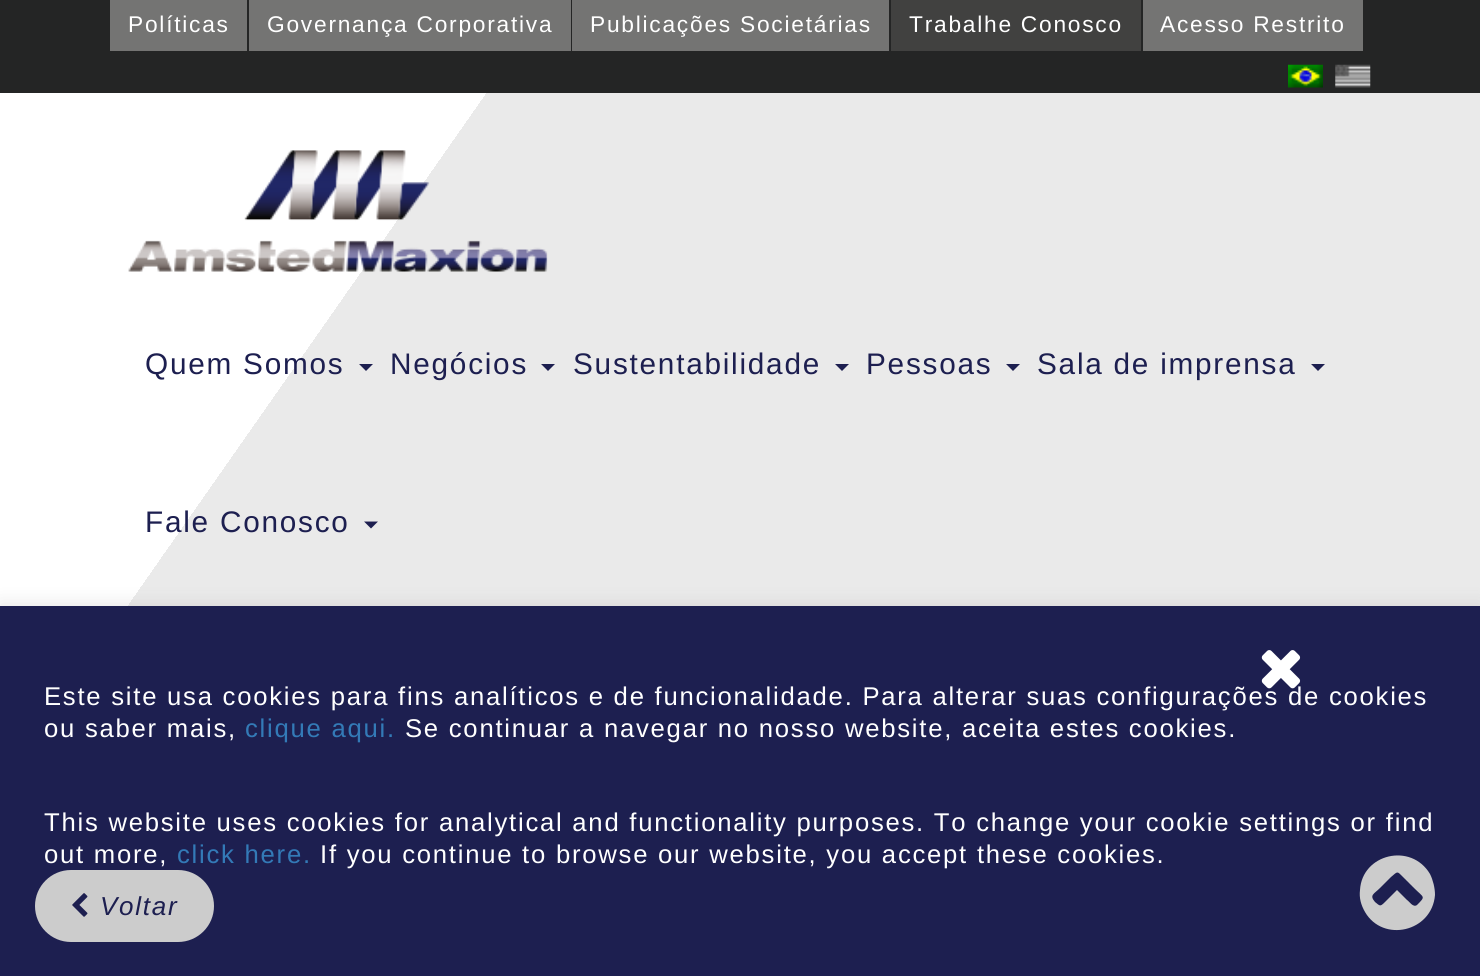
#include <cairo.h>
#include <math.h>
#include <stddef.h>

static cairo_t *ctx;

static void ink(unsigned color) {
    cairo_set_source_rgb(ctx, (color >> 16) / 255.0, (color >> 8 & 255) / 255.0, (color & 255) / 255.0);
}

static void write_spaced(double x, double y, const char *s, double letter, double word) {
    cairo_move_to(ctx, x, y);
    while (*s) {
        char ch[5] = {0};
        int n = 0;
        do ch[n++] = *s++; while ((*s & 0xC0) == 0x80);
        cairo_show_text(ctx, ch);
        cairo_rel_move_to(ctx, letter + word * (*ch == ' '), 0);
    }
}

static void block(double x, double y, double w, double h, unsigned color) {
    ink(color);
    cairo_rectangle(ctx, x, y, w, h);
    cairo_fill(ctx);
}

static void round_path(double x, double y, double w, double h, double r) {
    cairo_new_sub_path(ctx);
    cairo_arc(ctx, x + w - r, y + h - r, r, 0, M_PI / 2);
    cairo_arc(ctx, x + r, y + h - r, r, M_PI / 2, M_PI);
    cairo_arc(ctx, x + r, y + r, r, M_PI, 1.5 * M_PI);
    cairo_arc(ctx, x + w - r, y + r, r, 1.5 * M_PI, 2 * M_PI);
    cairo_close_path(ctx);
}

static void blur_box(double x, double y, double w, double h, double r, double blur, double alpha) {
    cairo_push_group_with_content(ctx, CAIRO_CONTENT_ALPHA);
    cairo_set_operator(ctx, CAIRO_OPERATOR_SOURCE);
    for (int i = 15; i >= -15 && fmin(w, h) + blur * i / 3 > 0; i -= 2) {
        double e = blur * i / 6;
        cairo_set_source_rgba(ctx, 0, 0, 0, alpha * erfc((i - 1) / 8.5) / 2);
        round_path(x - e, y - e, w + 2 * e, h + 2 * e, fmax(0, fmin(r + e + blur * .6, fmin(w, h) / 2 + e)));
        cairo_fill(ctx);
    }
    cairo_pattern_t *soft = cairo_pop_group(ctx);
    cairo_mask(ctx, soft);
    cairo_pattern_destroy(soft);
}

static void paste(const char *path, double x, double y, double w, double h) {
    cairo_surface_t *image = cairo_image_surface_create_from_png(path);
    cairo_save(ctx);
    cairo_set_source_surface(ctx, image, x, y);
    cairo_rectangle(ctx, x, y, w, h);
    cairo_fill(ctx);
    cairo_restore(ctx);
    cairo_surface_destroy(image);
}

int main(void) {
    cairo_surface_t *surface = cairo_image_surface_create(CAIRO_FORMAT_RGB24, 1480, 976);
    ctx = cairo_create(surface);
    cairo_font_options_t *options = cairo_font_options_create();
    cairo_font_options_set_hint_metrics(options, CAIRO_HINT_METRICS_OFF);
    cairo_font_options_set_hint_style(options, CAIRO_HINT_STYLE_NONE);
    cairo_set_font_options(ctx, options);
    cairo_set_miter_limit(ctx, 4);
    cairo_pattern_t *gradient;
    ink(0xffffff);
    cairo_paint(ctx);
    block(0, 0, 1480, 93, 0x242525);
    block(110, 0, 137, 51, 0x747473);
    cairo_select_font_face(ctx, "Liberation Sans", CAIRO_FONT_SLANT_NORMAL, CAIRO_FONT_WEIGHT_NORMAL);
    cairo_set_font_size(ctx, 22.75);
    ink(0xffffff);
    write_spaced(128, 32, "Políticas", 1.75, 0);
    block(249, 0, 322, 51, 0x747473);
    ink(0xffffff);
    write_spaced(267, 32, "Governança Corporativa", 1.75, 0);
    block(572, 0, 317, 51, 0x747473);
    ink(0xffffff);
    write_spaced(590, 32, "Publicações Societárias", 1.75, 0);
    block(891, 0, 250, 51, 0x414140);
    ink(0xffffff);
    write_spaced(909, 32, "Trabalhe Conosco", 1.75, 0);
    block(1143, 0, 220, 51, 0x747473);
    ink(0xffffff);
    write_spaced(1160, 32, "Acesso Restrito", 1.75, 0);
    paste("pic1.png", 1288, 64, 35, 24);
    paste("pic2.png", 1335, 64, 36, 24);
    gradient = cairo_pattern_create_linear(113, -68, 1368, 810);
    cairo_pattern_add_color_stop_rgba(gradient, 0, 1, 1, 1, 1);
    cairo_pattern_add_color_stop_rgba(gradient, 0.26, 1, 1, 1, 1);
    cairo_pattern_add_color_stop_rgba(gradient, 0.26, 0.918, 0.918, 0.918, 1);
    cairo_pattern_add_color_stop_rgba(gradient, 1, 0.918, 0.918, 0.918, 1);
    cairo_set_source(ctx, gradient);
    cairo_pattern_destroy(gradient);
    cairo_rectangle(ctx, 128, 93, 1352, 513);
    cairo_fill(ctx);
    paste("pic3.png", 128, 150, 420, 122);
    cairo_set_font_size(ctx, 29.75);
    ink(0x1d1f50);
    write_spaced(145, 374, "Quem Somos", 1.75, 0);
    cairo_new_path(ctx);
    cairo_move_to(ctx, 359, 364);
    cairo_line_to(ctx, 373, 364);
    cairo_line_to(ctx, 366, 371);
    cairo_close_path(ctx);
    cairo_fill(ctx);
    write_spaced(390, 374, "Negócios", 1.75, 0);
    cairo_new_path(ctx);
    cairo_move_to(ctx, 541, 364);
    cairo_line_to(ctx, 555, 364);
    cairo_line_to(ctx, 548, 371);
    cairo_close_path(ctx);
    cairo_fill(ctx);
    write_spaced(573, 374, "Sustentabilidade", 1.75, 0);
    cairo_new_path(ctx);
    cairo_move_to(ctx, 835, 364);
    cairo_line_to(ctx, 849, 364);
    cairo_line_to(ctx, 842, 371);
    cairo_close_path(ctx);
    cairo_fill(ctx);
    write_spaced(866, 374, "Pessoas", 1.75, 0);
    cairo_new_path(ctx);
    cairo_move_to(ctx, 1006, 364);
    cairo_line_to(ctx, 1020, 364);
    cairo_line_to(ctx, 1013, 371);
    cairo_close_path(ctx);
    cairo_fill(ctx);
    write_spaced(1037, 374, "Sala de imprensa", 1.75, 0);
    cairo_new_path(ctx);
    cairo_move_to(ctx, 1311, 364);
    cairo_line_to(ctx, 1325, 364);
    cairo_line_to(ctx, 1318, 371);
    cairo_close_path(ctx);
    cairo_fill(ctx);
    write_spaced(145, 532, "Fale Conosco", 1.75, 0);
    cairo_new_path(ctx);
    cairo_move_to(ctx, 364, 521.5);
    cairo_line_to(ctx, 378, 521.5);
    cairo_line_to(ctx, 371, 528.5);
    cairo_close_path(ctx);
    cairo_fill(ctx);
    ink(0xacabab);
    blur_box(0, 604, 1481, 371, 0, 9, 0.3);
    block(0, 606, 1480, 370, 0x1d1f50);
    ink(0xcccccc);
    round_path(35, 870, 179, 72, 36);
    cairo_fill(ctx);
    paste("pic4.png", 72, 893, 16, 24);
    cairo_select_font_face(ctx, "Liberation Sans", CAIRO_FONT_SLANT_ITALIC, CAIRO_FONT_WEIGHT_NORMAL);
    cairo_set_font_size(ctx, 26);
    ink(0x1d1f50);
    write_spaced(100, 915, "Voltar", 1.75, 0);
    cairo_select_font_face(ctx, "Liberation Sans", CAIRO_FONT_SLANT_NORMAL, CAIRO_FONT_WEIGHT_NORMAL);
    cairo_set_font_size(ctx, 25.67);
    ink(0xffffff);
    write_spaced(44, 705, "Este site usa cookies para fins analíticos e de funcionalidade. Para alterar suas configurações de cookies", 1.75, 0);
    paste("pic5.png", 1261, 650, 40, 39);
    write_spaced(44, 737, "ou saber mais,", 1.75, 0);
    ink(0x337ab7);
    write_spaced(245, 737, "clique aqui.", 1.75, 0);
    ink(0xffffff);
    write_spaced(405, 737, "Se continuar a navegar no nosso website, aceita estes cookies.", 1.75, 0);
    write_spaced(44, 831, "This website uses cookies for analytical and functionality purposes. To change your cookie settings or find", 1.75, 0);
    write_spaced(44, 863, "out more,", 1.75, 0);
    ink(0x337ab7);
    write_spaced(177, 863, "click here.", 1.75, 0);
    ink(0xffffff);
    write_spaced(320, 863, "If you continue to browse our website, you accept these cookies.", 1.75, 0);
    ink(0xcccccc);
    cairo_new_path(ctx);
    cairo_move_to(ctx, 1417, 905);
    cairo_curve_to(ctx, 1426, 896, 1424, 898, 1414, 888);
    cairo_line_to(ctx, 1403, 877);
    cairo_curve_to(ctx, 1397, 871, 1398, 871, 1391, 877);
    cairo_line_to(ctx, 1380, 888);
    cairo_curve_to(ctx, 1374, 894, 1369, 895, 1375, 902);
    cairo_curve_to(ctx, 1380, 906, 1380, 907, 1385, 902);
    cairo_line_to(ctx, 1397, 890);
    cairo_line_to(ctx, 1407, 900);
    cairo_curve_to(ctx, 1409, 901, 1413, 908, 1417, 905);
    cairo_close_path(ctx);
    cairo_move_to(ctx, 1430, 874);
    cairo_curve_to(ctx, 1433, 880, 1435, 888, 1435, 895);
    cairo_curve_to(ctx, 1432, 932, 1383, 943, 1365, 912);
    cairo_curve_to(ctx, 1361, 905, 1359, 898, 1360, 890);
    cairo_curve_to(ctx, 1362, 854, 1411, 842, 1430, 874);
    cairo_close_path(ctx);
    cairo_fill(ctx);
    cairo_surface_write_to_png(surface, "screenshot.png");
    cairo_font_options_destroy(options);
    cairo_destroy(ctx);
    cairo_surface_destroy(surface);
    return 0;
}
